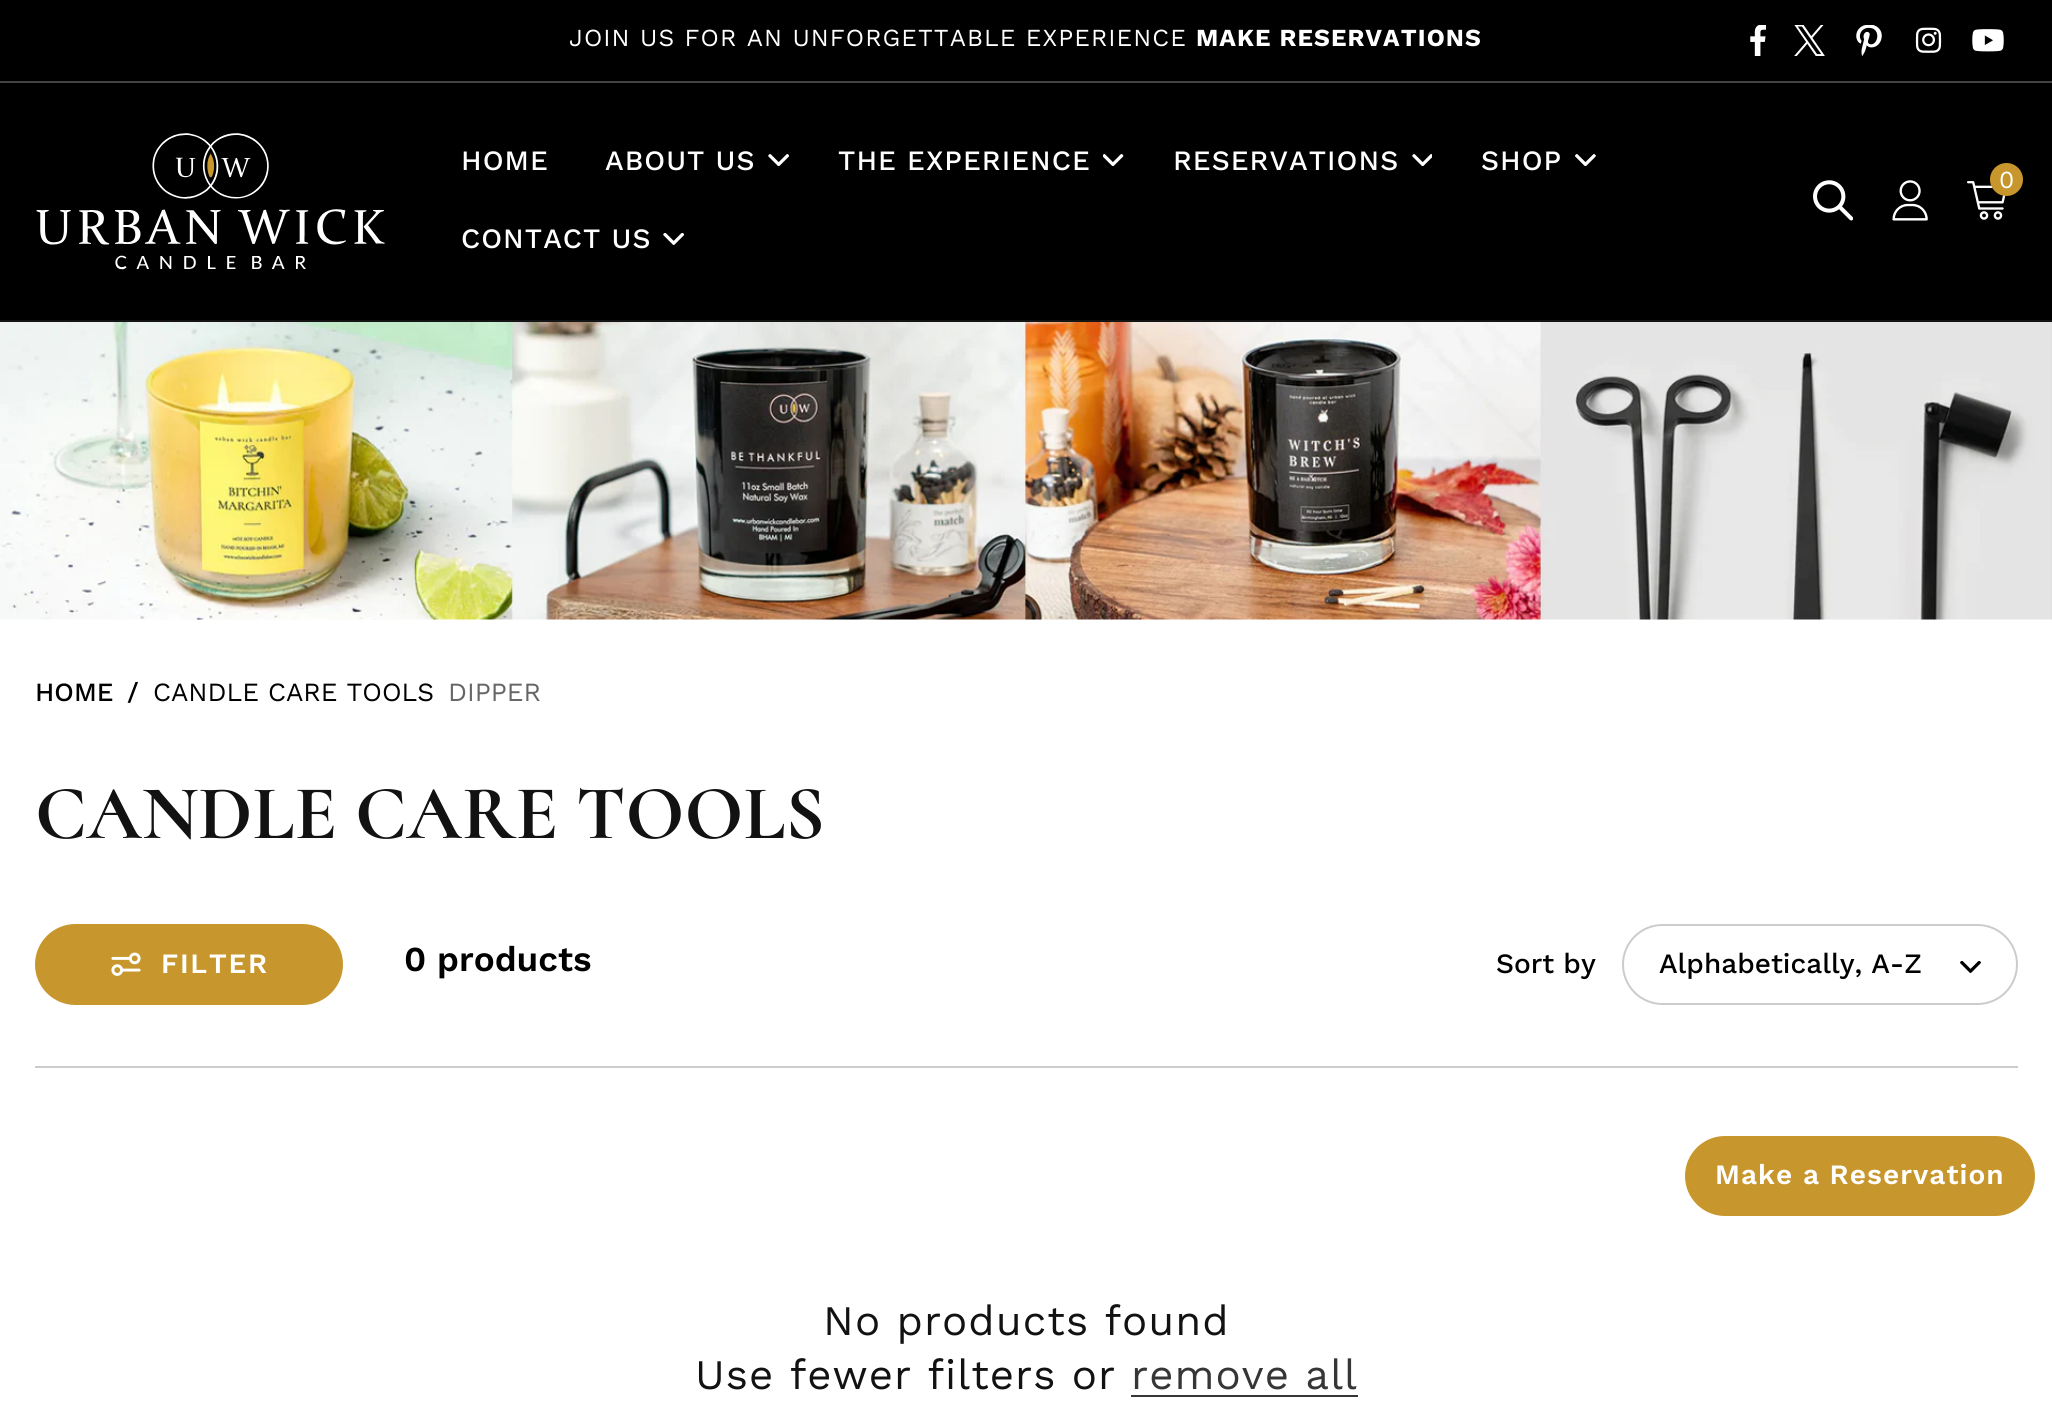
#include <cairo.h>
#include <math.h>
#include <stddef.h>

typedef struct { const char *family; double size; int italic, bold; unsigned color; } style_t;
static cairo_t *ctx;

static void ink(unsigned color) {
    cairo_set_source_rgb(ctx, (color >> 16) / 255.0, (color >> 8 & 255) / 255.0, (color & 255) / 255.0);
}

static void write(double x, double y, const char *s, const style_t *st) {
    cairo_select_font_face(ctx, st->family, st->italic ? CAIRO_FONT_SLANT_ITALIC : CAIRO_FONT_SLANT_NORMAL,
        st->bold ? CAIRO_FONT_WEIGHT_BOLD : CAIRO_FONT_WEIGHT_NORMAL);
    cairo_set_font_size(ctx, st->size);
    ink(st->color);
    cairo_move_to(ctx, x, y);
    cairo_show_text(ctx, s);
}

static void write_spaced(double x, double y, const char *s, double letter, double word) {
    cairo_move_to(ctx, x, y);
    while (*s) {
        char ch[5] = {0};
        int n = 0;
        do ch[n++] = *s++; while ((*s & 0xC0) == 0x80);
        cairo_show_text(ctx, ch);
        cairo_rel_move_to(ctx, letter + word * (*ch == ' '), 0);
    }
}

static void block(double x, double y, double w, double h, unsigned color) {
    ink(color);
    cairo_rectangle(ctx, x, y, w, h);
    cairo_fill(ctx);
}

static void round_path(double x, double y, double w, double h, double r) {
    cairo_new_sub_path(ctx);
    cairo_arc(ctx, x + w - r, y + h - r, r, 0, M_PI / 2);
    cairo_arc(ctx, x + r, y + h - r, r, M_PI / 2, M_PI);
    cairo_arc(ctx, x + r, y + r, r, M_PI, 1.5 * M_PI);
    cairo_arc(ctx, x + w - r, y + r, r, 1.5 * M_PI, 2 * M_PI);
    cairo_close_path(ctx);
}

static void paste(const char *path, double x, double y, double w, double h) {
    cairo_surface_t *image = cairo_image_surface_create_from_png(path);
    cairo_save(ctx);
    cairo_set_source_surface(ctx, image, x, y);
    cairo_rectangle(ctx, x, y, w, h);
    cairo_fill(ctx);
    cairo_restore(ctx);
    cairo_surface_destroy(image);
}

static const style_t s1 = {"Work Sans", 24.5, 0, 0, 0xffffff};
static const style_t s2 = {"Work Sans Medium", 26.25, 0, 0, 0x000000};
static const style_t s3 = {"Work Sans", 26.25, 0, 0, 0x000000};
static const style_t s4 = {"Work Sans", 26.25, 0, 0, 0x666666};
static const style_t s5 = {"Cormorant", 77, 0, 1, 0x121212};
static const style_t s6 = {"Work Sans SemiBold", 35, 0, 0, 0x000000};
static const style_t s7 = {"Work Sans Medium", 28, 0, 0, 0x000000};

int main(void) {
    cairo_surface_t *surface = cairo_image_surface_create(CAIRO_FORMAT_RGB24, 2052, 1426);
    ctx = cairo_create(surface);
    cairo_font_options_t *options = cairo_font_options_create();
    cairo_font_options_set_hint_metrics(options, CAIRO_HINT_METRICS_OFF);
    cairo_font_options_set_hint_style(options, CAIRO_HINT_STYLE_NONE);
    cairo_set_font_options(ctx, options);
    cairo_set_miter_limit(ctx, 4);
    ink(0xffffff);
    cairo_paint(ctx);
    block(0, 0, 2052, 81, 0x000000);
    block(0, 81, 2052, 2, 0x434343);
    cairo_select_font_face(ctx, "Work Sans", CAIRO_FONT_SLANT_NORMAL, CAIRO_FONT_WEIGHT_NORMAL);
    cairo_set_font_size(ctx, 24.5);
    ink(0xffffff);
    write_spaced(569, 46, "JOIN US FOR AN UNFORGETTABLE EXPERIENCE", 1.05, 0);
    cairo_select_font_face(ctx, "Work Sans", CAIRO_FONT_SLANT_NORMAL, CAIRO_FONT_WEIGHT_BOLD);
    write_spaced(1196, 46, "MAKE RESERVATIONS", 1.05, 0);
    paste("pic1.png", 1750, 25, 16, 31);
    paste("pic2.png", 1794, 25, 31, 31);
    paste("pic3.png", 1856, 25, 26, 31);
    paste("pic4.png", 1915, 27, 27, 26);
    paste("pic5.png", 1972, 29, 32, 23);
    block(0, 83, 2052, 237, 0x000000);
    block(0, 320, 2052, 2, 0x141414);
    paste("pic6.png", 36, 133, 349, 137);
    cairo_select_font_face(ctx, "Work Sans Medium", CAIRO_FONT_SLANT_NORMAL, CAIRO_FONT_WEIGHT_NORMAL);
    cairo_set_font_size(ctx, 28);
    ink(0xffffff);
    write_spaced(461, 170, "HOME", 1.05, 0);
    write_spaced(605, 170, "ABOUT US", 1.05, 0);
    paste("pic7.png", 768, 154, 21, 12);
    write_spaced(838, 170, "THE EXPERIENCE", 1.05, 0);
    paste("pic8.png", 1103, 154, 21, 12);
    write_spaced(1173, 170, "RESERVATIONS", 1.05, 0);
    paste("pic9.png", 1412, 154, 20, 12);
    write_spaced(1481, 170, "SHOP", 1.05, 0);
    paste("pic10.png", 1575, 154, 21, 12);
    write_spaced(461, 248, "CONTACT US", 1.05, 0);
    paste("pic11.png", 663, 233, 21, 12);
    paste("pic12.png", 1813, 180, 40, 41);
    paste("pic13.png", 1892, 180, 36, 41);
    paste("pic14.png", 1967, 181, 39, 39);
    ink(0xc7962c);
    cairo_arc(ctx, 2006.5, 179.5, 16.5, 0, 2 * M_PI);
    cairo_fill(ctx);
    write(1999, 188, "0", &s1);
    paste("pic15.png", 0, 322, 2052, 298);
    write(35, 701, "HOME", &s2);
    write(127, 701, "/", &s2);
    write(153, 701, "CANDLE CARE TOOLS", &s3);
    write(448, 701, "DIPPER", &s4);
    write(35, 838, "CANDLE CARE TOOLS", &s5);
    block(35, 1066, 1983, 2, 0xcccccc);
    ink(0xc7962c);
    round_path(35, 924, 308, 81, 40.5);
    cairo_fill(ctx);
    paste("pic16.png", 111, 952, 30, 24);
    cairo_select_font_face(ctx, "Work Sans SemiBold", CAIRO_FONT_SLANT_NORMAL, CAIRO_FONT_WEIGHT_NORMAL);
    cairo_set_font_size(ctx, 28);
    ink(0xffffff);
    write_spaced(161, 973, "FILTER", 1.75, 0);
    write(404, 971, "0 products", &s6);
    write(1496, 973, "Sort by", &s7);
    round_path(1623, 925, 394, 79, 39.5);
    ink(0xcccccc);
    cairo_stroke(ctx);
    write(1659, 973, "Alphabetically, A-Z", &s7);
    paste("pic17.png", 1960, 961, 21, 12);
    cairo_select_font_face(ctx, "Work Sans", CAIRO_FONT_SLANT_NORMAL, CAIRO_FONT_WEIGHT_NORMAL);
    cairo_set_font_size(ctx, 42);
    ink(0x121212);
    write_spaced(823, 1335, "No products found", 1.05, 0);
    write_spaced(695, 1389, "Use fewer filters or", 1.05, 0);
    ink(0x363636);
    write_spaced(1131, 1389, "remove all", 1.05, 0);
    block(1131, 1395, 227, 2, 0x363636);
    ink(0xc7962c);
    round_path(1685, 1136, 350, 80, 40);
    cairo_fill(ctx);
    cairo_select_font_face(ctx, "Work Sans SemiBold", CAIRO_FONT_SLANT_NORMAL, CAIRO_FONT_WEIGHT_NORMAL);
    cairo_set_font_size(ctx, 28);
    ink(0xffffff);
    write_spaced(1715, 1184, "Make a Reservation", 1.05, 0);
    cairo_surface_write_to_png(surface, "screenshot.png");
    cairo_font_options_destroy(options);
    cairo_destroy(ctx);
    cairo_surface_destroy(surface);
    return 0;
}
